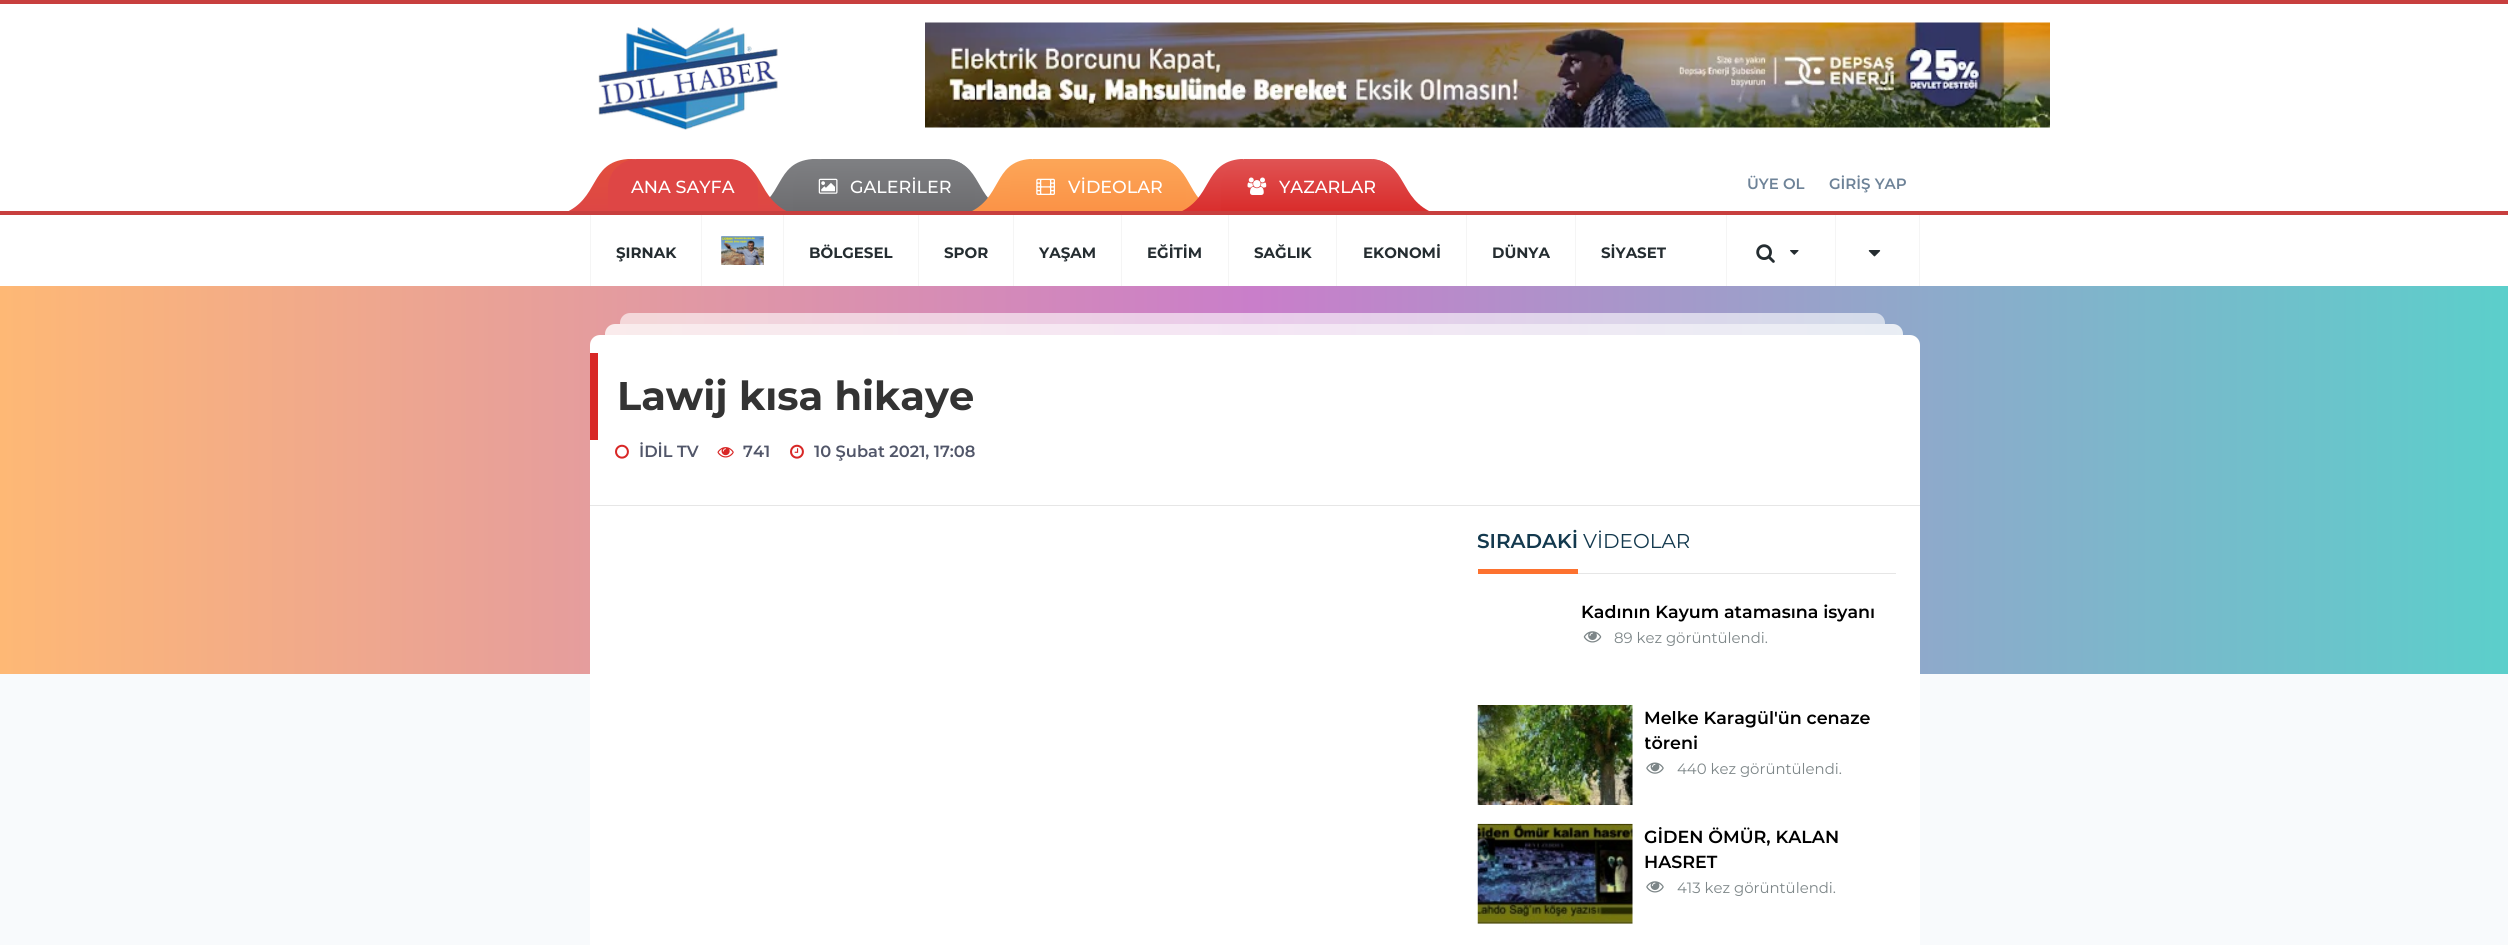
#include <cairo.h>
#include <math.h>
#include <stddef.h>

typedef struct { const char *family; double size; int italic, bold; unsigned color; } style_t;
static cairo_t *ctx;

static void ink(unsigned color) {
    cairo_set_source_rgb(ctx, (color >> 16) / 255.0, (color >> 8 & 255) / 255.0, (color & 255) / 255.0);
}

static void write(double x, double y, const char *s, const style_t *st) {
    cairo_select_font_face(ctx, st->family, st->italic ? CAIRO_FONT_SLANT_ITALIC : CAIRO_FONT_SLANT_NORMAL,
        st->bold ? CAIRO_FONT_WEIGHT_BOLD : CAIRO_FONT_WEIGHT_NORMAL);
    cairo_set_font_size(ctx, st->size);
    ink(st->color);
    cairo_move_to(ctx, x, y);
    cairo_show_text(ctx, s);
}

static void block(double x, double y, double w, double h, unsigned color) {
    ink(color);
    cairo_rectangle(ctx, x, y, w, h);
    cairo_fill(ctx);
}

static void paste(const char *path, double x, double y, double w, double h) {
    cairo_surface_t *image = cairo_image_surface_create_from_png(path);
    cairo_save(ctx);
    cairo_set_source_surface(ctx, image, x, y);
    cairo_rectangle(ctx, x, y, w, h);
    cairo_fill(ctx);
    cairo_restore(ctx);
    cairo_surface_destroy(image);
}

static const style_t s1 = {"Montserrat Medium", 17.5, 0, 0, 0xffffff};
static const style_t s2 = {"Montserrat SemiBold", 15, 0, 0, 0x6e8398};
static const style_t s3 = {"Montserrat", 15, 0, 1, 0x252d31};
static const style_t s4 = {"Montserrat", 40, 0, 1, 0x333333};
static const style_t s5 = {"Montserrat SemiBold", 16.25, 0, 0, 0x515669};
static const style_t s6 = {"Montserrat SemiBold", 20, 0, 0, 0x13394e};
static const style_t s7 = {"Montserrat", 20, 0, 0, 0x13394e};
static const style_t s8 = {"Montserrat SemiBold", 17.5, 0, 0, 0x000000};
static const style_t s9 = {"Montserrat", 14.9, 0, 0, 0x7d8688};

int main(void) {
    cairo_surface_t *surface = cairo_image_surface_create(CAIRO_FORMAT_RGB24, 2508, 945);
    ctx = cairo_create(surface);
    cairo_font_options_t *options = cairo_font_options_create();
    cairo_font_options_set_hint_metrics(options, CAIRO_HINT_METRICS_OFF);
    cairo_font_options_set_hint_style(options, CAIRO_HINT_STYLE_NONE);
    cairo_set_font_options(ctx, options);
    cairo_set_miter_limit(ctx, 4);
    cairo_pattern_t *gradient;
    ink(0xf8fafc);
    cairo_paint(ctx);
    block(0, 4, 2508, 207, 0xffffff);
    block(0, 0, 2508, 4, 0xc83f3e);
    paste("pic1.png", 598, 27, 180, 103);
    paste("pic2.png", 925, 22, 1125, 106);
    paste("pic3.png", 568, 159, 67, 52);
    paste("pic5.png", 769, 159, 51, 52);
    paste("pic4.png", 730, 159, 56, 52);
    ink(0xde4645);
    cairo_new_path(ctx);
    cairo_move_to(ctx, 637, 159);
    cairo_line_to(ctx, 729, 159);
    cairo_curve_to(ctx, 745, 159, 758, 172, 758, 188);
    cairo_line_to(ctx, 758, 211);
    cairo_line_to(ctx, 608, 211);
    cairo_line_to(ctx, 608, 188);
    cairo_curve_to(ctx, 608, 172, 621, 159, 637, 159);
    cairo_close_path(ctx);
    cairo_fill(ctx);
    write(631, 193, "ANA SAYFA", &s1);
    paste("pic7.png", 948, 159, 41, 51);
    gradient = cairo_pattern_create_linear(884, 159, 884, 211);
    cairo_pattern_add_color_stop_rgba(gradient, 0, 0.498, 0.502, 0.514, 1);
    cairo_pattern_add_color_stop_rgba(gradient, 1, 0.424, 0.424, 0.435, 1);
    cairo_set_source(ctx, gradient);
    cairo_pattern_destroy(gradient);
    cairo_new_path(ctx);
    cairo_move_to(ctx, 822, 159);
    cairo_line_to(ctx, 946, 159);
    cairo_curve_to(ctx, 962, 159, 975, 172, 975, 188);
    cairo_line_to(ctx, 975, 211);
    cairo_line_to(ctx, 793, 211);
    cairo_line_to(ctx, 793, 188);
    cairo_curve_to(ctx, 793, 172, 806, 159, 822, 159);
    cairo_close_path(ctx);
    cairo_fill(ctx);
    paste("pic6.png", 818, 178, 20, 16);
    write(850, 193, "GALERİLER", &s1);
    paste("pic8.png", 972, 159, 66, 52);
    paste("pic10.png", 1159, 159, 40, 50);
    gradient = cairo_pattern_create_linear(1098, 159, 1098, 211);
    cairo_pattern_add_color_stop_rgba(gradient, 0, 0.988, 0.651, 0.345, 1);
    cairo_pattern_add_color_stop_rgba(gradient, 1, 0.984, 0.573, 0.275, 1);
    cairo_set_source(ctx, gradient);
    cairo_pattern_destroy(gradient);
    cairo_new_path(ctx);
    cairo_move_to(ctx, 1039, 159);
    cairo_line_to(ctx, 1157, 159);
    cairo_curve_to(ctx, 1173, 159, 1186, 172, 1186, 188);
    cairo_line_to(ctx, 1186, 211);
    cairo_line_to(ctx, 1010, 211);
    cairo_line_to(ctx, 1010, 188);
    cairo_curve_to(ctx, 1010, 172, 1023, 159, 1039, 159);
    cairo_close_path(ctx);
    cairo_fill(ctx);
    paste("pic9.png", 1036, 178, 19, 17);
    write(1068, 193, "VİDEOLAR", &s1);
    paste("pic11.png", 1182, 159, 67, 52);
    paste("pic13.png", 1373, 159, 56, 52);
    gradient = cairo_pattern_create_linear(1311, 159, 1311, 211);
    cairo_pattern_add_color_stop_rgba(gradient, 0, 0.878, 0.329, 0.329, 1);
    cairo_pattern_add_color_stop_rgba(gradient, 1, 0.851, 0.173, 0.169, 1);
    cairo_set_source(ctx, gradient);
    cairo_pattern_destroy(gradient);
    cairo_new_path(ctx);
    cairo_move_to(ctx, 1250, 159);
    cairo_line_to(ctx, 1371, 159);
    cairo_curve_to(ctx, 1387, 159, 1400, 172, 1400, 188);
    cairo_line_to(ctx, 1400, 211);
    cairo_line_to(ctx, 1221, 211);
    cairo_line_to(ctx, 1221, 188);
    cairo_curve_to(ctx, 1221, 172, 1234, 159, 1250, 159);
    cairo_close_path(ctx);
    cairo_fill(ctx);
    paste("pic12.png", 1247, 177, 20, 18);
    write(1279, 193, "YAZARLAR", &s1);
    write(1747, 189, "ÜYE OL", &s2);
    write(1829, 189, "GİRİŞ YAP", &s2);
    block(0, 215, 2508, 71, 0xffffff);
    block(0, 211, 2508, 4, 0xc83f3e);
    block(1919, 215, 1, 71, 0xf5f5f5);
    block(590, 215, 1, 71, 0xf5f5f5);
    write(616, 258, "ŞIRNAK", &s3);
    block(701, 215, 1, 71, 0xf5f5f5);
    paste("pic14.png", 721, 236, 43, 29);
    block(783, 215, 1, 71, 0xf5f5f5);
    write(809, 258, "BÖLGESEL", &s3);
    block(918, 215, 1, 71, 0xf5f5f5);
    write(944, 258, "SPOR", &s3);
    block(1013, 215, 1, 71, 0xf5f5f5);
    write(1039, 258, "YAŞAM", &s3);
    block(1121, 215, 1, 71, 0xf5f5f5);
    write(1147, 258, "EĞİTİM", &s3);
    block(1228, 215, 1, 71, 0xf5f5f5);
    write(1254, 258, "SAĞLIK", &s3);
    block(1336, 215, 1, 71, 0xf5f5f5);
    write(1363, 258, "EKONOMİ", &s3);
    block(1466, 215, 1, 71, 0xf5f5f5);
    write(1492, 258, "DÜNYA", &s3);
    block(1575, 215, 1, 71, 0xf5f5f5);
    write(1601, 258, "SİYASET", &s3);
    block(1726, 215, 1, 71, 0xf5f5f5);
    paste("pic15.png", 1756, 244, 19, 19);
    paste("pic16.png", 1790, 250, 9, 5);
    block(1835, 215, 1, 71, 0xf5f5f5);
    paste("pic17.png", 1868, 250, 13, 7);
    gradient = cairo_pattern_create_linear(0, 299, 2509, 299);
    cairo_pattern_add_color_stop_rgba(gradient, 0, 0.996, 0.722, 0.459, 1);
    cairo_pattern_add_color_stop_rgba(gradient, 0.5, 0.788, 0.494, 0.792, 1);
    cairo_pattern_add_color_stop_rgba(gradient, 1, 0.357, 0.812, 0.796, 1);
    cairo_set_source(ctx, gradient);
    cairo_pattern_destroy(gradient);
    cairo_rectangle(ctx, 0, 286, 2508, 13);
    cairo_fill(ctx);
    gradient = cairo_pattern_create_linear(0, 486, 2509, 486);
    cairo_pattern_add_color_stop_rgba(gradient, 0, 0.996, 0.722, 0.459, 1);
    cairo_pattern_add_color_stop_rgba(gradient, 0.5, 0.788, 0.494, 0.792, 1);
    cairo_pattern_add_color_stop_rgba(gradient, 1, 0.357, 0.812, 0.796, 1);
    cairo_set_source(ctx, gradient);
    cairo_pattern_destroy(gradient);
    cairo_rectangle(ctx, 0, 299, 2508, 375);
    cairo_fill(ctx);
    ink(0xffffff);
    cairo_new_path(ctx);
    cairo_move_to(ctx, 600, 335);
    cairo_line_to(ctx, 1910, 335);
    cairo_curve_to(ctx, 1915.5, 335, 1920, 339.5, 1920, 345);
    cairo_line_to(ctx, 1920, 506);
    cairo_line_to(ctx, 590, 506);
    cairo_line_to(ctx, 590, 345);
    cairo_curve_to(ctx, 590, 339.5, 594.5, 335, 600, 335);
    cairo_close_path(ctx);
    cairo_fill(ctx);
    block(590, 505, 1330, 1, 0xe6e6e6);
    cairo_set_source_rgba(ctx, 1, 1, 1, 0.6);
    cairo_new_path(ctx);
    cairo_move_to(ctx, 630, 313);
    cairo_line_to(ctx, 1875, 313);
    cairo_curve_to(ctx, 1880.5, 313, 1885, 317.5, 1885, 323);
    cairo_line_to(ctx, 1885, 324);
    cairo_line_to(ctx, 620, 324);
    cairo_line_to(ctx, 620, 323);
    cairo_curve_to(ctx, 620, 317.5, 624.5, 313, 630, 313);
    cairo_close_path(ctx);
    cairo_fill(ctx);
    cairo_set_source_rgba(ctx, 1, 1, 1, 0.8);
    cairo_new_path(ctx);
    cairo_move_to(ctx, 615, 324);
    cairo_line_to(ctx, 1893, 324);
    cairo_curve_to(ctx, 1898.5, 324, 1903, 328.5, 1903, 334);
    cairo_line_to(ctx, 1903, 335);
    cairo_line_to(ctx, 605, 335);
    cairo_line_to(ctx, 605, 334);
    cairo_curve_to(ctx, 605, 328.5, 609.5, 324, 615, 324);
    cairo_close_path(ctx);
    cairo_fill(ctx);
    block(590, 353, 8, 87, 0xd82726);
    write(617, 410, "Lawij kısa hikaye", &s4);
    paste("pic18.png", 615, 444, 14, 15);
    write(639, 457, "İDİL TV", &s5);
    paste("pic19.png", 717, 447, 17, 11);
    write(743, 457, "741", &s5);
    paste("pic20.png", 790, 444, 14, 15);
    write(814, 457, "10 Şubat 2021, 17:08", &s5);
    block(590, 506, 1330, 439, 0xffffff);
    block(1578, 573, 318, 1, 0xe6e6e6);
    write(1477, 548, "SIRADAKİ", &s6);
    block(1478, 569, 100, 5, 0xfd722f);
    write(1583, 548, "VİDEOLAR", &s7);
    write(1581, 618, "Kadının Kayum atamasına isyanı", &s8);
    paste("pic21.png", 1583, 631, 19, 12);
    write(1614, 643, "89 kez görüntülendi.", &s9);
    paste("pic22.png", 1477, 705, 156, 100);
    write(1644, 724, "Melke Karagül'ün cenaze", &s8);
    cairo_save(ctx);
    cairo_rectangle(ctx, 1645, 705, 251, 100);
    cairo_clip(ctx);
    write(1644, 749, "töreni", &s8);
    cairo_restore(ctx);
    paste("pic23.png", 1646, 762, 18, 12);
    write(1677, 774, "440 kez görüntülendi.", &s9);
    paste("pic24.png", 1477, 823, 156, 101);
    write(1644, 843, "GİDEN ÖMÜR, KALAN", &s8);
    write(1644, 868, "HASRET", &s8);
    paste("pic25.png", 1646, 881, 18, 12);
    write(1677, 893, "413 kez görüntülendi.", &s9);
    cairo_surface_write_to_png(surface, "screenshot.png");
    cairo_font_options_destroy(options);
    cairo_destroy(ctx);
    cairo_surface_destroy(surface);
    return 0;
}
